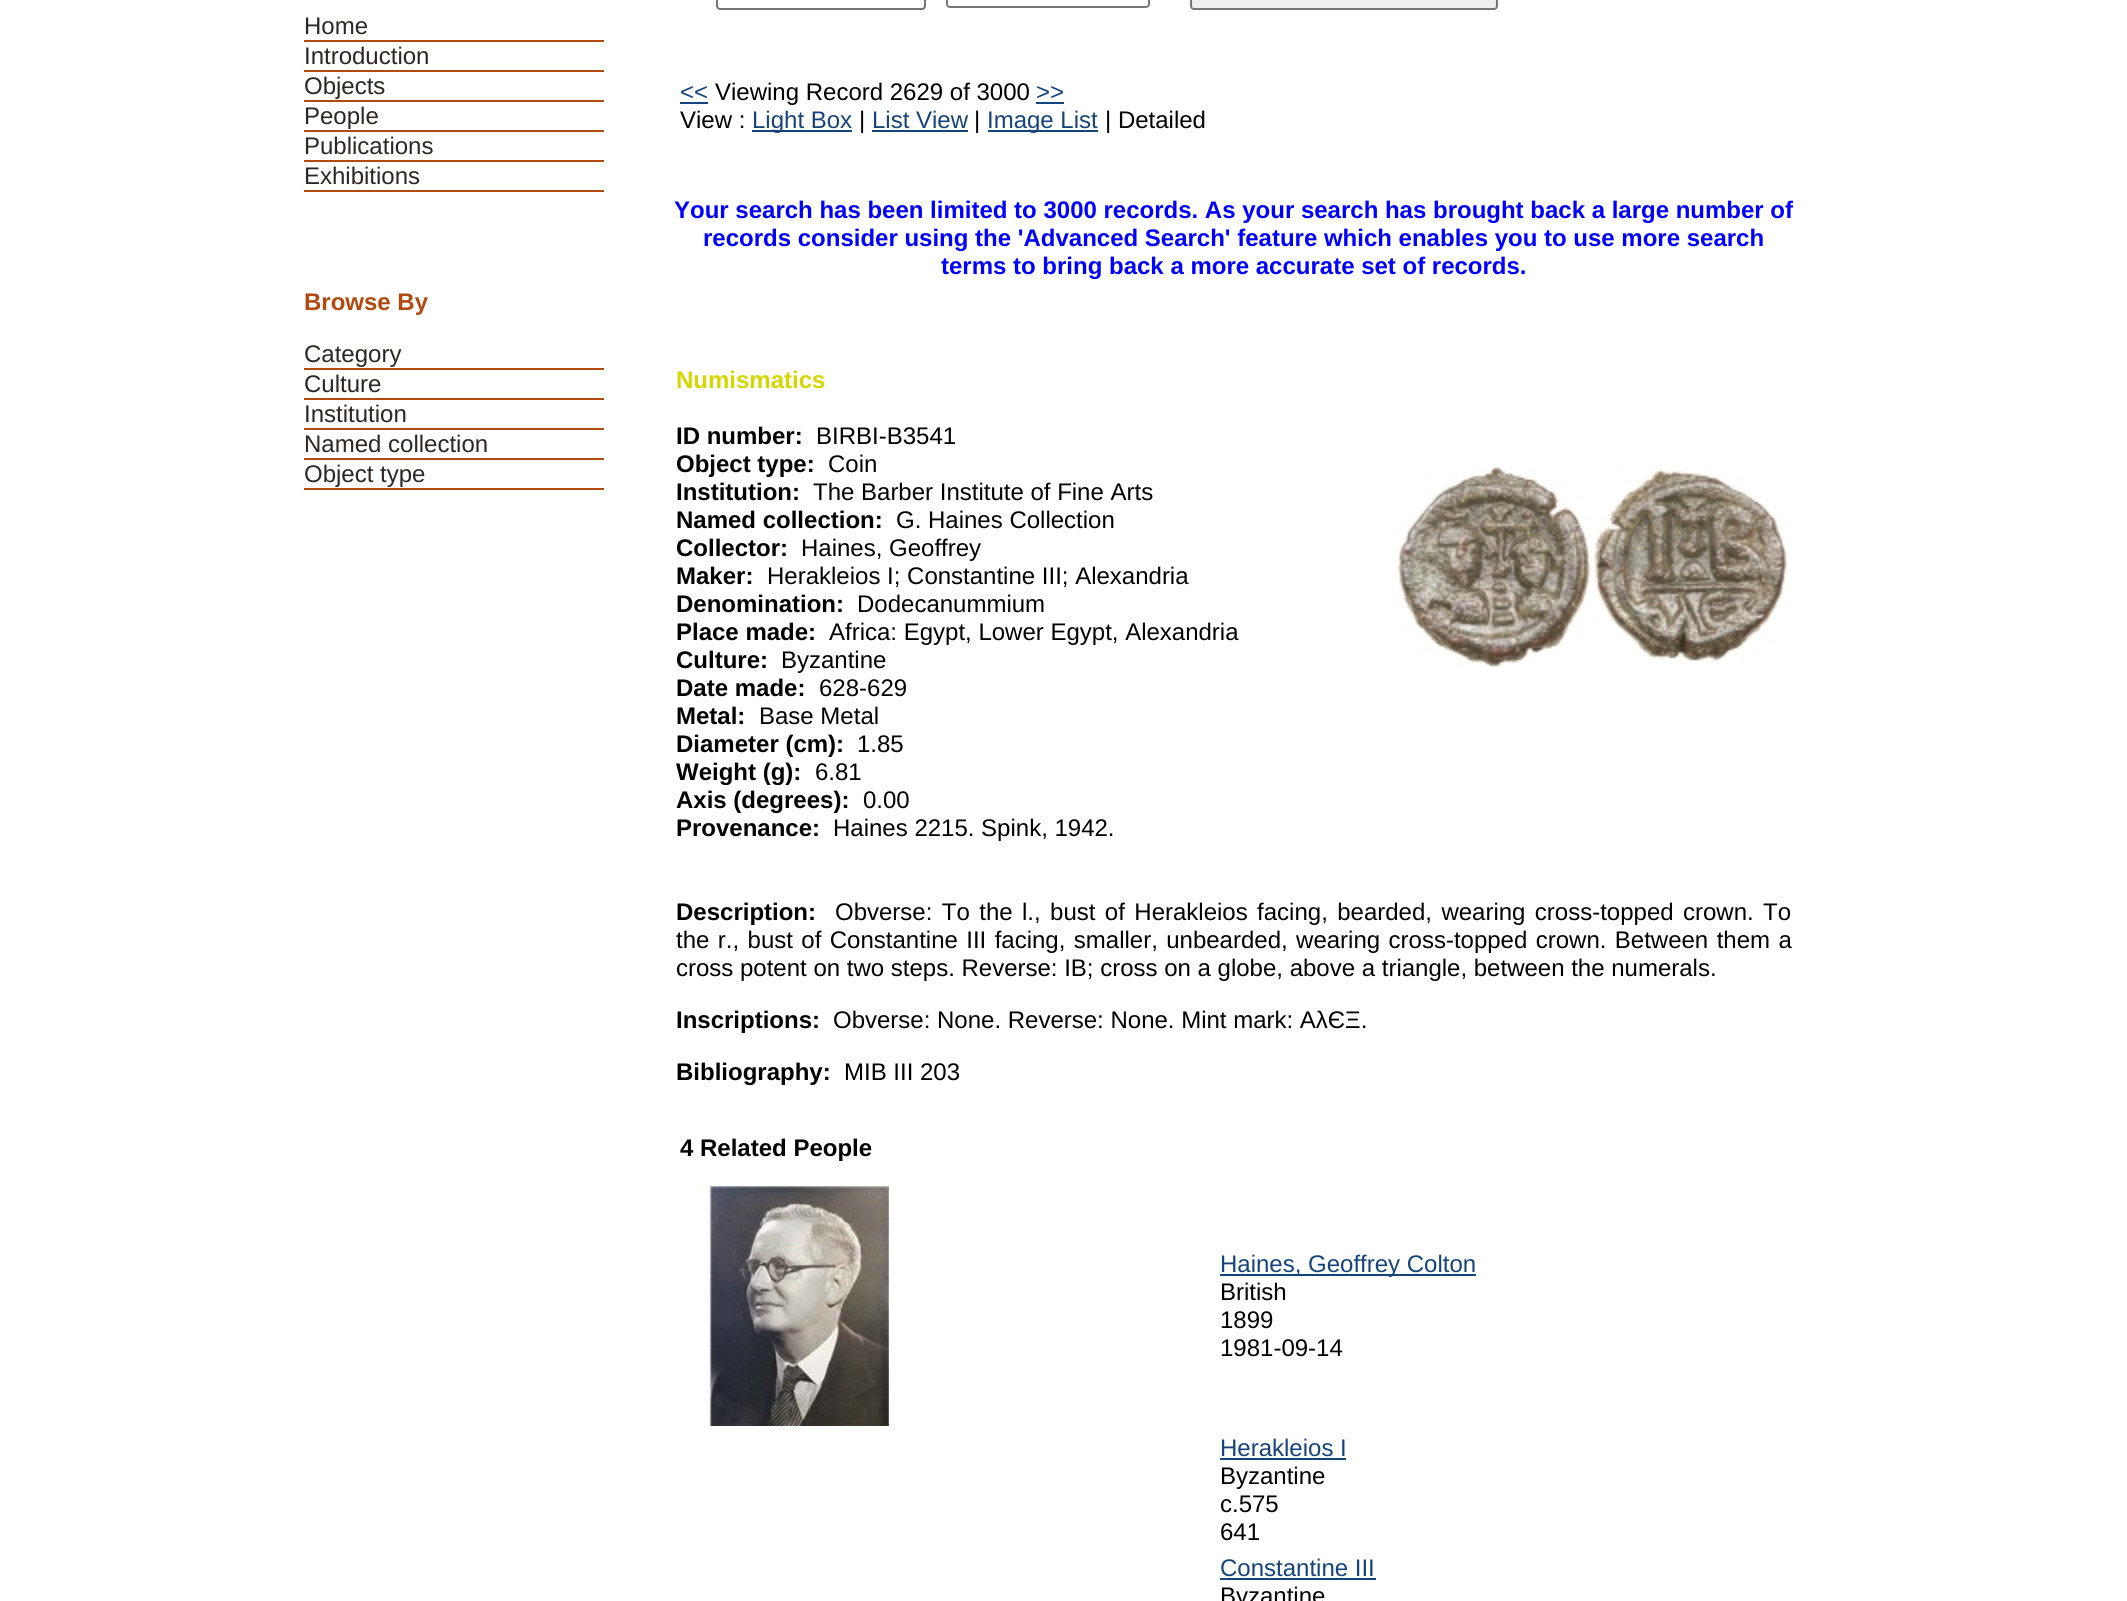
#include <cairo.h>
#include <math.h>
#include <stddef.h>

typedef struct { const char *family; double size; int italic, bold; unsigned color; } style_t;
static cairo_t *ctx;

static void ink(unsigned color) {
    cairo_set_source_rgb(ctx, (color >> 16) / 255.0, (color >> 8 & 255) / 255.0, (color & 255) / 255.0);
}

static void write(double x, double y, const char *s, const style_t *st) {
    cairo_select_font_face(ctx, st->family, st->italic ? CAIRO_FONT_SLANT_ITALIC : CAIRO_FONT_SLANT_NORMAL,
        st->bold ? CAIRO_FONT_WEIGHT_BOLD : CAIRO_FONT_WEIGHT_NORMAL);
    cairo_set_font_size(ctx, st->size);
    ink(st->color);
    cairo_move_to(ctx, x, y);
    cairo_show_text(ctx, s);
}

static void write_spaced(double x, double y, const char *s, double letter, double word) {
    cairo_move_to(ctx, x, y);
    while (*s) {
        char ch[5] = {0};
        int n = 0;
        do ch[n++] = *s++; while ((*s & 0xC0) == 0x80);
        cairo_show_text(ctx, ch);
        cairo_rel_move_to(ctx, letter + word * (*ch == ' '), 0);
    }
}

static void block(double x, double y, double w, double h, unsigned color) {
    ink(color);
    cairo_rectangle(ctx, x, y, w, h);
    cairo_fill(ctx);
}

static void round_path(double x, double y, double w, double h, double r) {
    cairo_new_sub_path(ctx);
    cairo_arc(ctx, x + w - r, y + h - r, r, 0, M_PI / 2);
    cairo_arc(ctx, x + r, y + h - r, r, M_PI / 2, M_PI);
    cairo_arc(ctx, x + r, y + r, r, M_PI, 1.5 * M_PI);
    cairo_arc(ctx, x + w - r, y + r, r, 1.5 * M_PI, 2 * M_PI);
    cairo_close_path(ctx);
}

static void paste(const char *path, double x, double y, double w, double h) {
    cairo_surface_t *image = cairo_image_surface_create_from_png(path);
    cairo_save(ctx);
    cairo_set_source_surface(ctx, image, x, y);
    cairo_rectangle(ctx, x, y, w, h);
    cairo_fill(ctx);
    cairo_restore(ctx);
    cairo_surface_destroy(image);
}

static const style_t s1 = {"Liberation Sans", 24, 0, 0, 0x2e2620};
static const style_t s2 = {"Liberation Sans", 24, 0, 0, 0x15447c};
static const style_t s3 = {"Liberation Sans", 24, 0, 0, 0x000000};
static const style_t s4 = {"Liberation Sans", 24, 0, 1, 0x0000ff};
static const style_t s5 = {"Liberation Sans", 24, 0, 1, 0xd6d600};
static const style_t s6 = {"Liberation Sans", 24, 0, 1, 0x000000};
static const style_t s7 = {"Liberation Sans", 24, 0, 1, 0xb2490e};

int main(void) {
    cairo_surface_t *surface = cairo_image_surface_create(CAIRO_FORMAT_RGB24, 2127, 1601);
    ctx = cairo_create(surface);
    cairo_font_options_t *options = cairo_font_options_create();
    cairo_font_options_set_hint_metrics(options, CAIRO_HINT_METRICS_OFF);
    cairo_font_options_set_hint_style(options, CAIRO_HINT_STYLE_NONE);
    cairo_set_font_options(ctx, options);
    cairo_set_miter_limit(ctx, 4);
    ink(0xffffff);
    cairo_paint(ctx);
    round_path(717, -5, 208, 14, 3);
    ink(0x767676);
    cairo_stroke(ctx);
    round_path(947, -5, 202, 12, 3);
    cairo_stroke(ctx);
    ink(0xefefef);
    round_path(1191, -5, 306, 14, 3);
    cairo_fill_preserve(ctx);
    ink(0x767676);
    cairo_stroke(ctx);
    block(304, 40, 300, 2, 0xb2490e);
    write(304, 34, "Home", &s1);
    block(304, 70, 300, 2, 0xb2490e);
    write(304, 64, "Introduction", &s1);
    block(304, 100, 300, 2, 0xb2490e);
    write(304, 94, "Objects", &s1);
    block(304, 130, 300, 2, 0xb2490e);
    write(304, 124, "People", &s1);
    block(304, 160, 300, 2, 0xb2490e);
    write(304, 154, "Publications", &s1);
    block(304, 190, 300, 2, 0xb2490e);
    write(304, 184, "Exhibitions", &s1);
    write(680, 100, "<<", &s2);
    block(680, 102, 28, 2, 0x15447c);
    write(715, 100, "Viewing Record 2629 of 3000", &s3);
    write(1036, 100, ">>", &s2);
    block(1036, 102, 28, 2, 0x15447c);
    write(680, 128, "View :", &s3);
    block(752, 130, 100, 2, 0x15447c);
    write(752, 128, "Light Box", &s2);
    write(859, 128, "|", &s3);
    write(872, 128, "List View", &s2);
    block(872, 130, 96, 2, 0x15447c);
    write(974, 128, "|", &s3);
    block(988, 130, 110, 2, 0x15447c);
    write(987, 128, "Image List", &s2);
    write(1105, 128, "| Detailed", &s3);
    write(674, 218, "Your search has been limited to 3000 records. As your search has brought back a large number of", &s4);
    write(703, 246, "records consider using the 'Advanced Search' feature which enables you to use more search", &s4);
    write(941, 274, "terms to bring back a more accurate set of records.", &s4);
    write(676, 388, "Numismatics", &s5);
    write(676, 444, "ID number:", &s6);
    write(816, 444, "BIRBI-B3541", &s3);
    write(676, 472, "Object type:", &s6);
    write(828, 472, "Coin", &s3);
    write(676, 500, "Institution:", &s6);
    write(813, 500, "The Barber Institute of Fine Arts", &s3);
    write(676, 528, "Named collection:", &s6);
    write(896, 528, "G. Haines Collection", &s3);
    write(676, 556, "Collector:", &s6);
    write(801, 556, "Haines, Geoffrey", &s3);
    write(676, 584, "Maker:", &s6);
    write(767, 584, "Herakleios I; Constantine III; Alexandria", &s3);
    write(676, 612, "Denomination:", &s6);
    write(857, 612, "Dodecanummium", &s3);
    write(676, 640, "Place made:", &s6);
    write(829, 640, "Africa: Egypt, Lower Egypt, Alexandria", &s3);
    write(676, 668, "Culture:", &s6);
    write(781, 668, "Byzantine", &s3);
    write(676, 696, "Date made:", &s6);
    write(819, 696, "628-629", &s3);
    write(676, 724, "Metal:", &s6);
    write(759, 724, "Base Metal", &s3);
    write(676, 752, "Diameter (cm):", &s6);
    write(857, 752, "1.85", &s3);
    write(676, 780, "Weight (g):", &s6);
    write(815, 780, "6.81", &s3);
    write(676, 808, "Axis (degrees):", &s6);
    write(863, 808, "0.00", &s3);
    write(676, 836, "Provenance:", &s6);
    write(833, 836, "Haines 2215. Spink, 1942.", &s3);
    paste("pic1.png", 1397, 465, 392, 203);
    write(676, 920, "Description:", &s6);
    cairo_select_font_face(ctx, "Liberation Sans", CAIRO_FONT_SLANT_NORMAL, CAIRO_FONT_WEIGHT_NORMAL);
    write_spaced(835, 920, "Obverse: To the l., bust of Herakleios facing, bearded, wearing cross-topped crown. To", 0, 2.75);
    write_spaced(676, 948, "the r., bust of Constantine III facing, smaller, unbearded, wearing cross-topped crown. Between them a", 0, 1.75);
    write(676, 976, "cross potent on two steps. Reverse: IB; cross on a globe, above a triangle, between the numerals.", &s3);
    write(676, 1028, "Inscriptions:", &s6);
    write(833, 1028, "Obverse: None. Reverse: None. Mint mark: AλЄΞ.", &s3);
    write(676, 1080, "Bibliography:", &s6);
    write(844, 1080, "MIB III 203", &s3);
    write(680, 1156, "4 Related People", &s6);
    paste("pic2.png", 699, 1186, 192, 240);
    block(1220, 1274, 256, 2, 0x15447c);
    write(1220, 1272, "Haines, Geoffrey Colton", &s2);
    write(1220, 1300, "British", &s3);
    write(1220, 1328, "1899", &s3);
    write(1220, 1356, "1981-09-14", &s3);
    write(1220, 1456, "Herakleios I", &s2);
    block(1220, 1458, 126, 2, 0x15447c);
    write(1220, 1484, "Byzantine", &s3);
    write(1220, 1512, "c.575", &s3);
    write(1220, 1540, "641", &s3);
    write(1220, 1576, "Constantine III", &s2);
    block(1220, 1578, 156, 2, 0x15447c);
    write(1220, 1604, "Byzantine", &s3);
    write(304, 310, "Browse By", &s7);
    block(304, 368, 300, 2, 0xb2490e);
    write(304, 362, "Category", &s1);
    block(304, 398, 300, 2, 0xb2490e);
    write(304, 392, "Culture", &s1);
    block(304, 428, 300, 2, 0xb2490e);
    write(304, 422, "Institution", &s1);
    block(304, 458, 300, 2, 0xb2490e);
    write(304, 452, "Named collection", &s1);
    block(304, 488, 300, 2, 0xb2490e);
    write(304, 482, "Object type", &s1);
    cairo_surface_write_to_png(surface, "screenshot.png");
    cairo_font_options_destroy(options);
    cairo_destroy(ctx);
    cairo_surface_destroy(surface);
    return 0;
}
